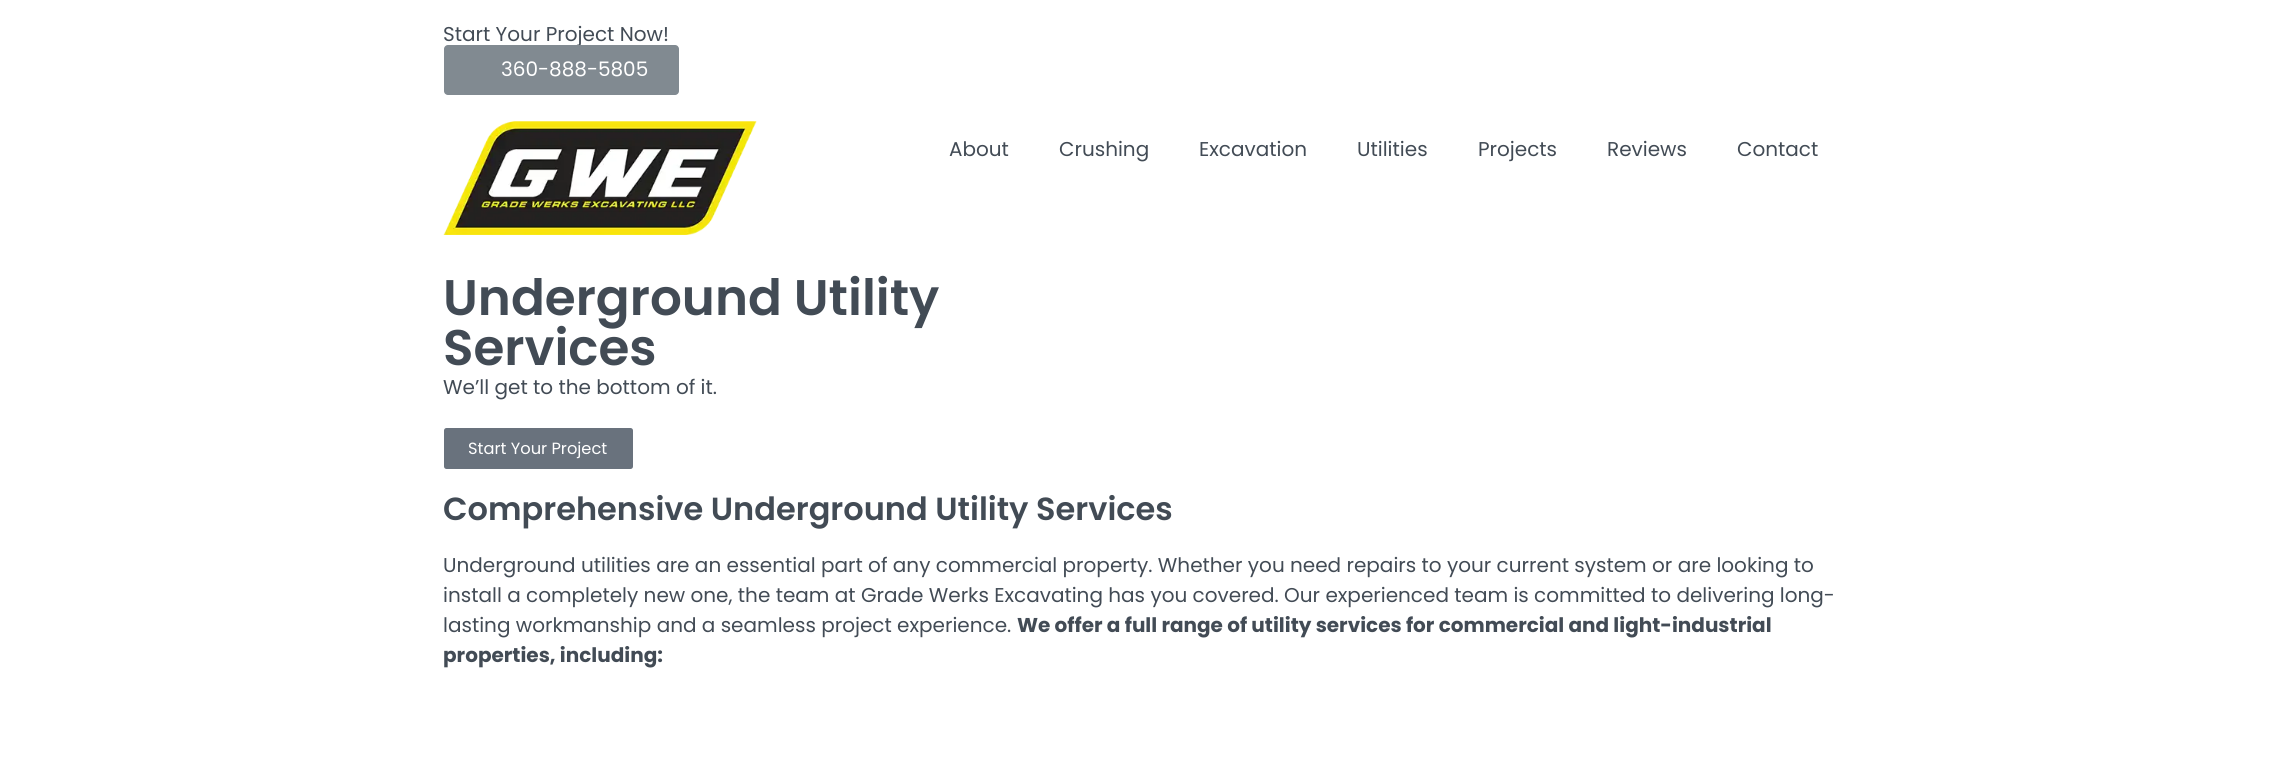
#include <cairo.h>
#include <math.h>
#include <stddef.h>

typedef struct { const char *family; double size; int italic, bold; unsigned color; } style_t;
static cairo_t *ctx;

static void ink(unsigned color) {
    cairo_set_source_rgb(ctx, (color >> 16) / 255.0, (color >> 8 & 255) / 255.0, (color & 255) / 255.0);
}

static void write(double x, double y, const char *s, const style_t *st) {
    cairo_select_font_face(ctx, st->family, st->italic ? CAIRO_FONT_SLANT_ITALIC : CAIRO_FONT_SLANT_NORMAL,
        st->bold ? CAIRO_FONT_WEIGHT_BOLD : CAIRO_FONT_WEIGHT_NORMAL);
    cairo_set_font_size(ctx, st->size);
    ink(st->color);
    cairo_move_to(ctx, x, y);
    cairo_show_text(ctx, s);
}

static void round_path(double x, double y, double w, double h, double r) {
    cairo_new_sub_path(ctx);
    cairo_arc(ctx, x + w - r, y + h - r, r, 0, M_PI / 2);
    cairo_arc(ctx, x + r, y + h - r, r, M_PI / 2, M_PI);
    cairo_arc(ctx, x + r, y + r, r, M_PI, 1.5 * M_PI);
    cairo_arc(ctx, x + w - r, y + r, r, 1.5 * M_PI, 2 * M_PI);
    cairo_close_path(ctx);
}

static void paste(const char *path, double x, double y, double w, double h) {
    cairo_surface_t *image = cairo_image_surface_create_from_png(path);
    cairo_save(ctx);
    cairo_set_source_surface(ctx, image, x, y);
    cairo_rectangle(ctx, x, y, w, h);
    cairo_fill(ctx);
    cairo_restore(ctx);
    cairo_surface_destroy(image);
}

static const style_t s1 = {"Poppins", 20, 0, 0, 0x424b55};
static const style_t s2 = {"Poppins", 20, 0, 0, 0xffffff};
static const style_t s3 = {"Poppins SemiBold", 50, 0, 0, 0x424b55};
static const style_t s4 = {"Poppins", 16.25, 0, 0, 0xffffff};
static const style_t s5 = {"Poppins SemiBold", 32, 0, 0, 0x424b55};
static const style_t s6 = {"Poppins", 20, 0, 1, 0x424b55};

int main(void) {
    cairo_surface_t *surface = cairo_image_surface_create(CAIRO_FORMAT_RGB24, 2286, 784);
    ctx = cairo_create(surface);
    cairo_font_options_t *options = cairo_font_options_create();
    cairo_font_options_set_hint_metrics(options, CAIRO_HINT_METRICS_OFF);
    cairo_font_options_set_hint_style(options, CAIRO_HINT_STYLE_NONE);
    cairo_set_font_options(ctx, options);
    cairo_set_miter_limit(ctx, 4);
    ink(0xffffff);
    cairo_paint(ctx);
    write(443, 41, "Start Your Project Now!", &s1);
    ink(0x818a91);
    round_path(444, 45, 235, 50, 4);
    cairo_fill(ctx);
    write(501, 76, "360-888-5805", &s2);
    paste("pic1.png", 443, 121, 314, 114);
    write(949, 156, "About", &s1);
    write(1059, 156, "Crushing", &s1);
    write(1199, 156, "Excavation", &s1);
    write(1357, 156, "Utilities", &s1);
    write(1478, 156, "Projects", &s1);
    write(1607, 156, "Reviews", &s1);
    write(1737, 156, "Contact", &s1);
    write(443, 315, "Underground Utility", &s3);
    write(443, 365, "Services", &s3);
    write(443, 394, "We’ll get to the bottom of it.", &s1);
    ink(0x69727d);
    round_path(444, 428, 189, 41, 2.5);
    cairo_fill(ctx);
    write(468, 454, "Start Your Project", &s4);
    write(443, 520, "Comprehensive Underground Utility Services", &s5);
    write(443, 572, "Underground utilities are an essential part of any commercial property. Whether you need repairs to your current system or are looking to", &s1);
    write(443, 602, "install a completely new one, the team at Grade Werks Excavating has you covered. Our experienced team is committed to delivering long-", &s1);
    write(443, 632, "lasting workmanship and a seamless project experience.", &s1);
    write(1017, 632, "We offer a full range of utility services for commercial and light-industrial", &s6);
    write(443, 662, "properties, including:", &s6);
    cairo_surface_write_to_png(surface, "screenshot.png");
    cairo_font_options_destroy(options);
    cairo_destroy(ctx);
    cairo_surface_destroy(surface);
    return 0;
}
